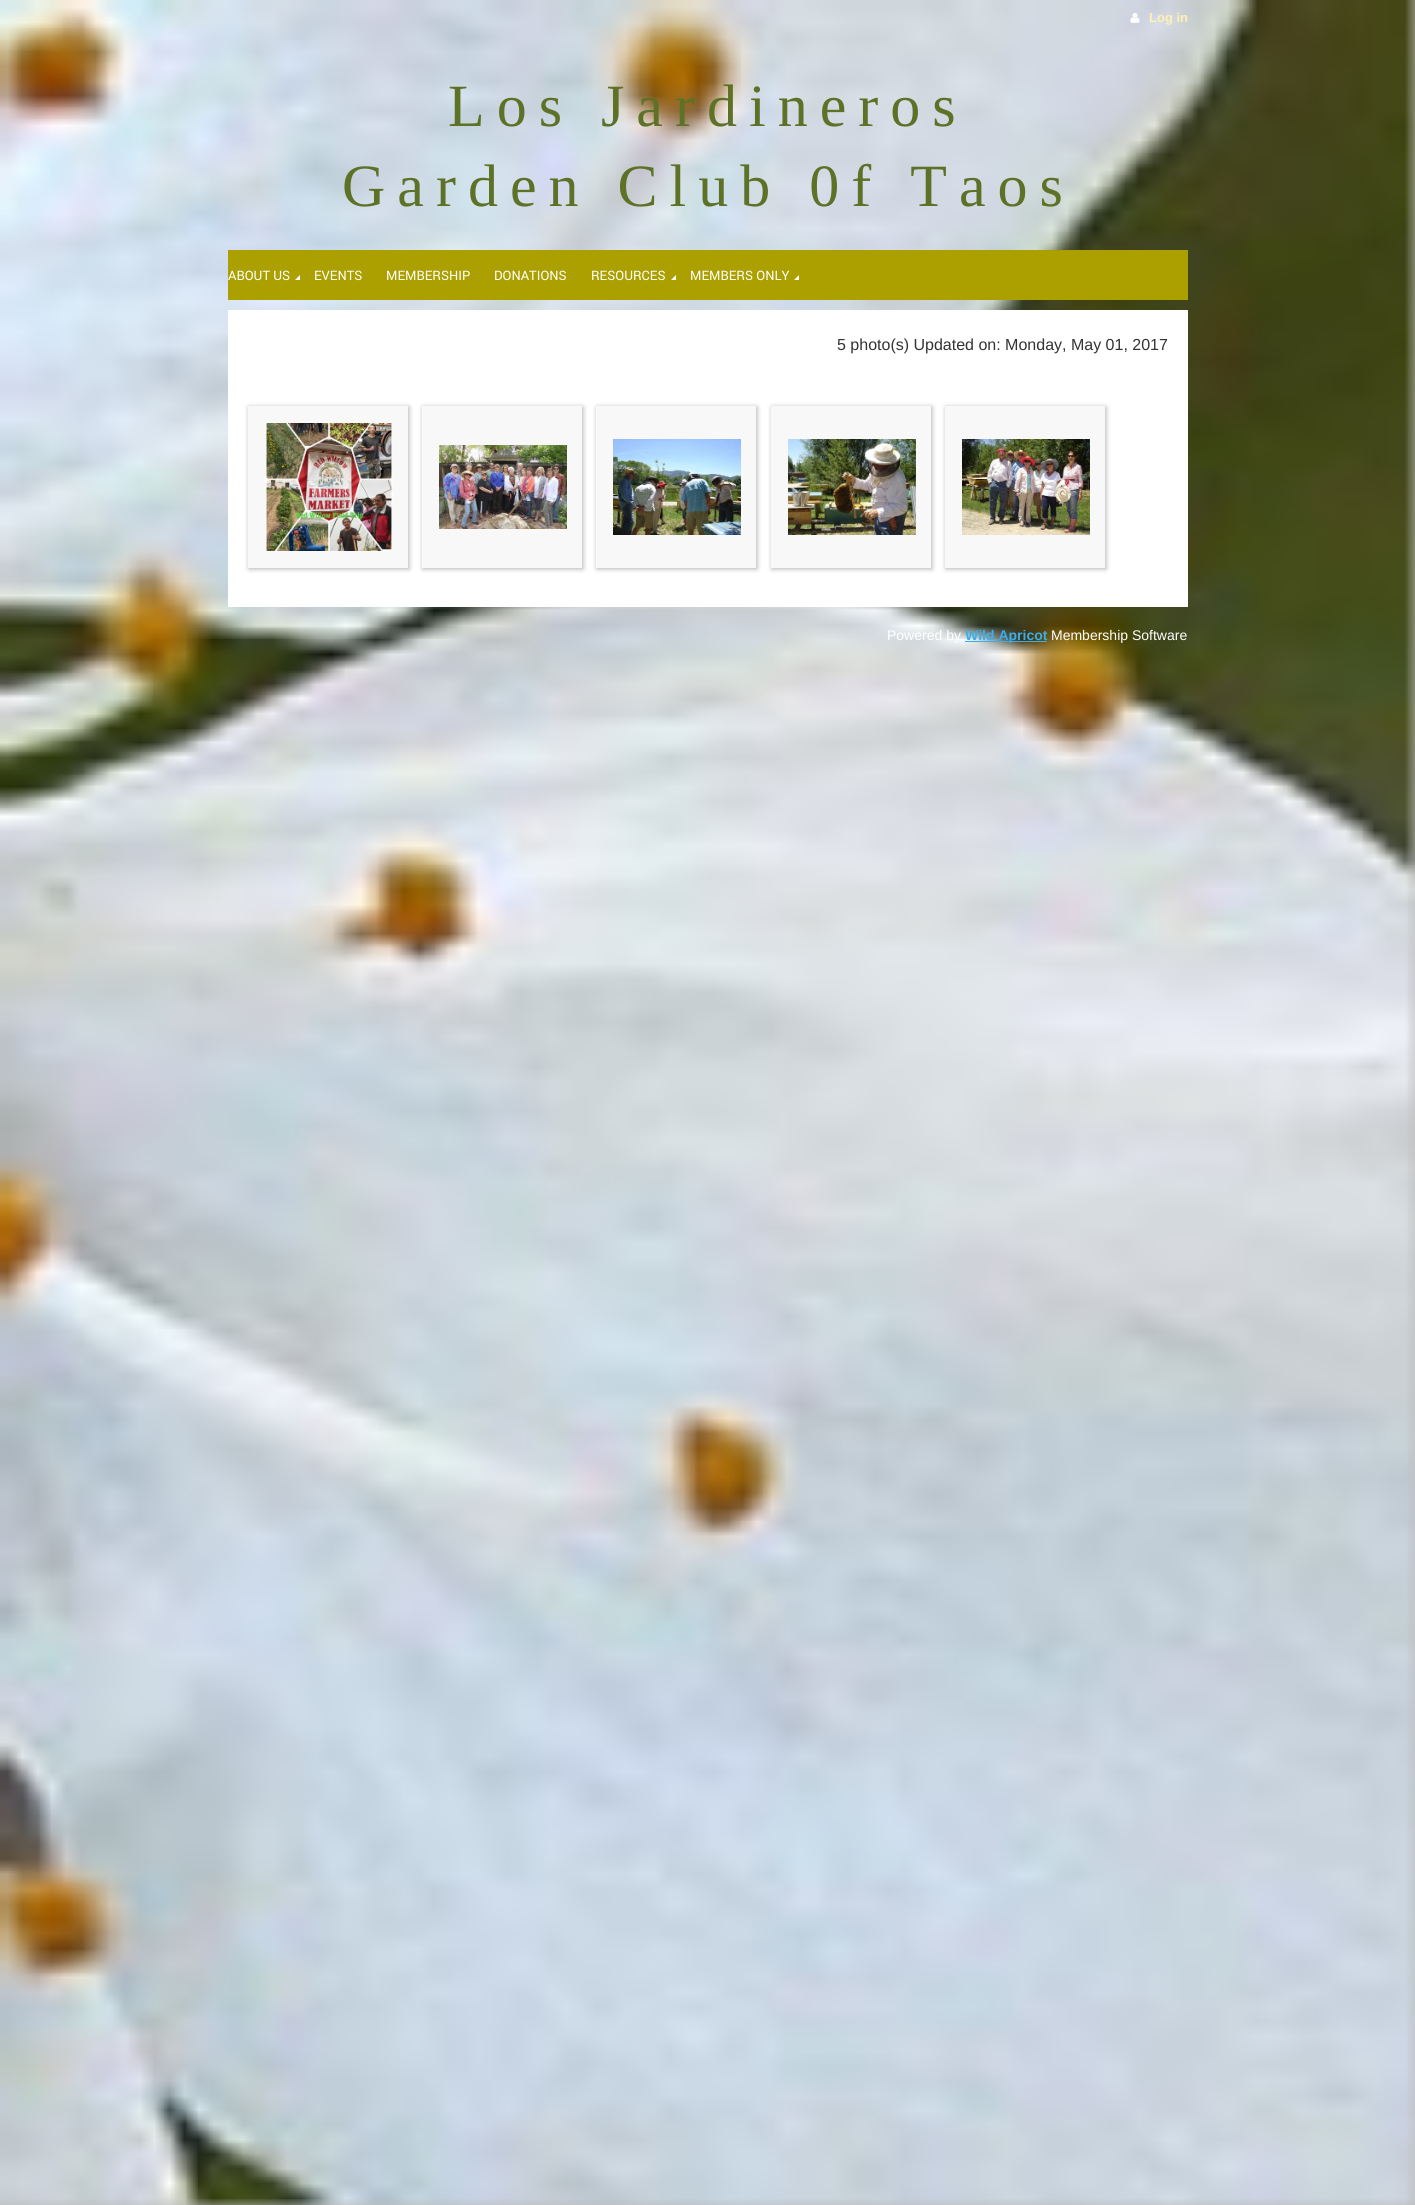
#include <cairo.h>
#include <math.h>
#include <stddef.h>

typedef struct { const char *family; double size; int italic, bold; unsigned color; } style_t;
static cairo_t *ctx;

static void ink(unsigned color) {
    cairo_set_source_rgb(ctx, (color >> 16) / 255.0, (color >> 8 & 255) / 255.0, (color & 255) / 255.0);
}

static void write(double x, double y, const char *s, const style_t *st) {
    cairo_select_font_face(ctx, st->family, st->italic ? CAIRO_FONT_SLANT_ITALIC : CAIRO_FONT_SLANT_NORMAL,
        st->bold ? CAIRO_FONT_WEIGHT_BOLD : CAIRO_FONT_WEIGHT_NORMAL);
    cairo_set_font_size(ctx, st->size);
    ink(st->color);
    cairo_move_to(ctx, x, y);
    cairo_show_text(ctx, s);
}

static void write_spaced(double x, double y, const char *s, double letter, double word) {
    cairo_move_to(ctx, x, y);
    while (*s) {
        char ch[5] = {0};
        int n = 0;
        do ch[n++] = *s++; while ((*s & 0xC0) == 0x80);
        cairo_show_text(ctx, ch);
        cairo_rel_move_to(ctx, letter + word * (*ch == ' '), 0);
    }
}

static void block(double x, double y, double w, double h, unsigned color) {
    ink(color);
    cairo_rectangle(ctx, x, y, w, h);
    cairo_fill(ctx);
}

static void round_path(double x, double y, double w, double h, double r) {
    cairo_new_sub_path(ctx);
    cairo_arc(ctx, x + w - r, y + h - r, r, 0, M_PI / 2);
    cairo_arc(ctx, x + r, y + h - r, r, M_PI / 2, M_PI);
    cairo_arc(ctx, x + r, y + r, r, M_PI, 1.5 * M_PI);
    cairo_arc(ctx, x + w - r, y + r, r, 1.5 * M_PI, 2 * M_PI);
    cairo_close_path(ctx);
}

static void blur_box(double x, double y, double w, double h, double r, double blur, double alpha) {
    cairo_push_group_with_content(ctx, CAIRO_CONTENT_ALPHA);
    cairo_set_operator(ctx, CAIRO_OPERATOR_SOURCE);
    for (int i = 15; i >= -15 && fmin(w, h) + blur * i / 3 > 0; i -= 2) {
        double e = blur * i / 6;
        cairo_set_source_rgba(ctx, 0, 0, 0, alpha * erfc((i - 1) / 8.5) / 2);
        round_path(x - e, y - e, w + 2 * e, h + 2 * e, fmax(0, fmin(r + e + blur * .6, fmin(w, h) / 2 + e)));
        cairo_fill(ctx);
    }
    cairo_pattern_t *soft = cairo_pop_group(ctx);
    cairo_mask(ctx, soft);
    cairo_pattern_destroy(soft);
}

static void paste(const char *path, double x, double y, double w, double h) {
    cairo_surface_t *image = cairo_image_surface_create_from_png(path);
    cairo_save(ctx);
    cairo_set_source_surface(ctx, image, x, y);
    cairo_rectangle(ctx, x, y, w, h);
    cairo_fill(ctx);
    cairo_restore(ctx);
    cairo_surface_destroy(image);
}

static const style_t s1 = {"Liberation Sans", 13, 0, 1, 0xfff0b4};
static const style_t s2 = {"Roboto", 13, 0, 0, 0xffffff};
static const style_t s3 = {"Liberation Sans", 16, 0, 0, 0x333333};
static const style_t s4 = {"Liberation Sans", 14, 0, 0, 0xffffff};
static const style_t s5 = {"Liberation Sans", 14, 0, 1, 0x36aff0};

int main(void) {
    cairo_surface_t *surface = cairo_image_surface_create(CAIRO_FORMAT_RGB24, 1415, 2205);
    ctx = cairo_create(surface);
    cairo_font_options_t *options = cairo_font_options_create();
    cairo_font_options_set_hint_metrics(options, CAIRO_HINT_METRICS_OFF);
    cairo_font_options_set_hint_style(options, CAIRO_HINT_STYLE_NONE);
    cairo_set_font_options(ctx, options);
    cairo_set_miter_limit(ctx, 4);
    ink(0xbcbcbc);
    cairo_paint(ctx);
    paste("pic1.png", 0, 0, 1415, 2205);
    paste("pic2.png", 1130, 13, 10, 10);
    write(1149, 22, "Log in", &s1);
    cairo_select_font_face(ctx, "Liberation Serif", CAIRO_FONT_SLANT_NORMAL, CAIRO_FONT_WEIGHT_NORMAL);
    cairo_set_font_size(ctx, 60);
    ink(0x5d7227);
    write_spaced(448, 126, "Los Jardineros", 12, 0);
    write_spaced(342, 206, "Garden Club 0f Taos", 12, 0);
    block(228, 250, 960, 1, 0xaba000);
    block(228, 251, 960, 49, 0xaba000);
    write(228, 280, "ABOUT US", &s2);
    cairo_new_path(ctx);
    cairo_move_to(ctx, 300, 280);
    cairo_line_to(ctx, 295, 280);
    cairo_line_to(ctx, 300, 275);
    cairo_close_path(ctx);
    cairo_fill(ctx);
    write(314, 280, "EVENTS", &s2);
    write(386, 280, "MEMBERSHIP", &s2);
    write(494, 280, "DONATIONS", &s2);
    write(591, 280, "RESOURCES", &s2);
    cairo_new_path(ctx);
    cairo_move_to(ctx, 676, 280);
    cairo_line_to(ctx, 671, 280);
    cairo_line_to(ctx, 676, 275);
    cairo_close_path(ctx);
    cairo_fill(ctx);
    write(690, 280, "MEMBERS ONLY", &s2);
    cairo_new_path(ctx);
    cairo_move_to(ctx, 799, 280);
    cairo_line_to(ctx, 794, 280);
    cairo_line_to(ctx, 799, 275);
    cairo_close_path(ctx);
    cairo_fill(ctx);
    block(228, 310, 960, 297, 0xffffff);
    write(837, 350, "5 photo(s) Updated on: Monday, May 01, 2017", &s3);
    ink(0x000000);
    blur_box(249, 407, 160, 162, 0, 2.5, 0.3);
    block(248, 406, 160, 162, 0xf8f8f8);
    paste("pic3.png", 265, 423, 128, 128);
    ink(0x000000);
    blur_box(423, 407, 160, 162, 0, 2.5, 0.3);
    block(422, 406, 160, 162, 0xf8f8f8);
    paste("pic4.png", 439, 445, 128, 84);
    ink(0x000000);
    blur_box(597, 407, 160, 162, 0, 2.5, 0.3);
    block(596, 406, 160, 162, 0xf8f8f8);
    paste("pic5.png", 613, 439, 128, 96);
    ink(0x000000);
    blur_box(772, 407, 160, 162, 0, 2.5, 0.3);
    block(771, 406, 160, 162, 0xf8f8f8);
    paste("pic6.png", 788, 439, 128, 96);
    ink(0x000000);
    blur_box(946, 407, 160, 162, 0, 2.5, 0.3);
    block(945, 406, 160, 162, 0xf8f8f8);
    paste("pic7.png", 962, 439, 128, 96);
    write(887, 640, "Powered by", &s4);
    block(965, 641, 82, 1, 0x36aff0);
    write(965, 640, "Wild Apricot", &s5);
    write(1051, 640, "Membership Software", &s4);
    cairo_surface_write_to_png(surface, "screenshot.png");
    cairo_font_options_destroy(options);
    cairo_destroy(ctx);
    cairo_surface_destroy(surface);
    return 0;
}
